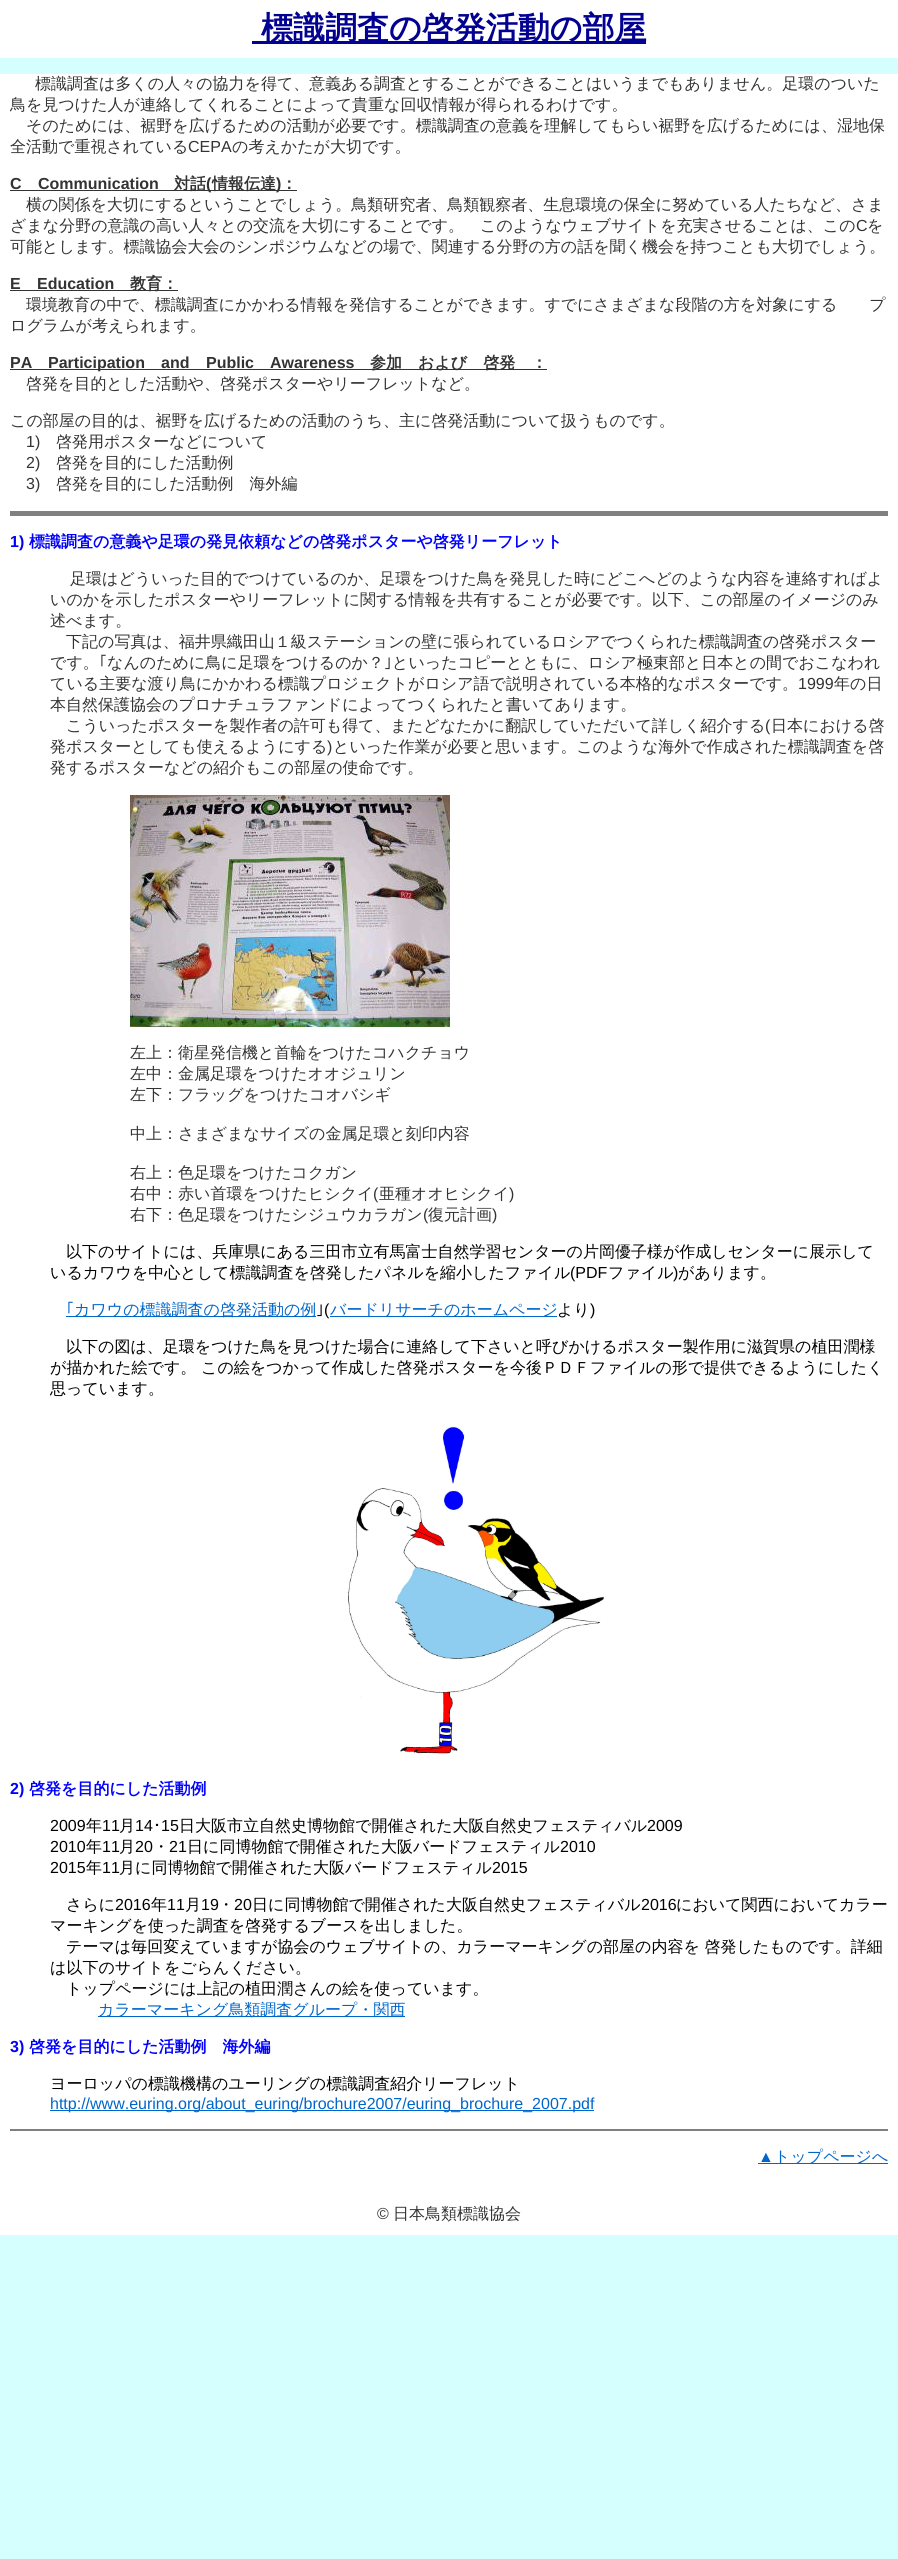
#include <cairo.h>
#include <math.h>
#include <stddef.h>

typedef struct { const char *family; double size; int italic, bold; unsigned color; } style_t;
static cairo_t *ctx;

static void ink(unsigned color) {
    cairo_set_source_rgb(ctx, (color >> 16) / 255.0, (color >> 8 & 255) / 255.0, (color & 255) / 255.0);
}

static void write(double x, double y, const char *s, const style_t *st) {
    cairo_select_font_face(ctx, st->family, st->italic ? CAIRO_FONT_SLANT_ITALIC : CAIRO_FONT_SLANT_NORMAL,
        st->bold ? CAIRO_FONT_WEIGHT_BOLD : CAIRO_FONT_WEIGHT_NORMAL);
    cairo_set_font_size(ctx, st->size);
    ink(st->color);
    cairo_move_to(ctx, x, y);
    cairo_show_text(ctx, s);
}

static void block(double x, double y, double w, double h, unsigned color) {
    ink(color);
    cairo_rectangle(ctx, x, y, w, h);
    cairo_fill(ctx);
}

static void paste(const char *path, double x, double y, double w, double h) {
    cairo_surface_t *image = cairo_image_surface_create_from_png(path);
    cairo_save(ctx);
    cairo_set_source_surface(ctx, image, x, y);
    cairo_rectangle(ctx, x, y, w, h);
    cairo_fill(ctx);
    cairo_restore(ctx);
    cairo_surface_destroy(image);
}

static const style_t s1 = {"WenQuanYi Zen Hei", 32, 0, 1, 0x030191};
static const style_t s2 = {"WenQuanYi Zen Hei Medium", 16, 0, 0, 0x333333};
static const style_t s3 = {"Liberation Sans", 16, 0, 0, 0x333333};
static const style_t s4 = {"Liberation Sans", 16, 0, 1, 0x333333};
static const style_t s5 = {"WenQuanYi Zen Hei", 16, 0, 1, 0x333333};
static const style_t s6 = {"Liberation Sans", 16, 0, 1, 0x0000ff};
static const style_t s7 = {"WenQuanYi Zen Hei", 16, 0, 1, 0x0000ff};
static const style_t s8 = {"IPAPGothic", 16, 0, 0, 0x333333};
static const style_t s9 = {"WenQuanYi Zen Hei Medium", 16, 0, 0, 0x000000};
static const style_t s10 = {"Liberation Sans", 16, 0, 0, 0x000000};
static const style_t s11 = {"IPAPGothic", 16, 0, 0, 0x0066cc};
static const style_t s12 = {"WenQuanYi Zen Hei Medium", 16, 0, 0, 0x0066cc};
static const style_t s13 = {"IPAPGothic", 16, 0, 0, 0x000000};
static const style_t s14 = {"Liberation Sans", 16, 0, 0, 0x0066cc};

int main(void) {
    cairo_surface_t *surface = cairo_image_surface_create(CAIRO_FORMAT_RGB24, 898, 2559);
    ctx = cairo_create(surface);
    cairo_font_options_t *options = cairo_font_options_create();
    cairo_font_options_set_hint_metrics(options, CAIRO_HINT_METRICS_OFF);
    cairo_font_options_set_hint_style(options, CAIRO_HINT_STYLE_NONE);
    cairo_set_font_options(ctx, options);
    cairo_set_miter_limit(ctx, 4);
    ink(0xd5ffff);
    cairo_paint(ctx);
    block(0, 0, 898, 58, 0xffffff);
    block(252, 41, 394, 3, 0x030191);
    write(261, 39, "標識調査の啓発活動の部屋", &s1);
    block(0, 74, 898, 2161, 0xffffff);
    write(35, 89, "標識調査は多くの人々の協力を得て、意義ある調査とすることができることはいうまでもありません。足環のついた", &s2);
    write(10, 110, "鳥を見つけた人が連絡してくれることによって貴重な回収情報が得られるわけです。", &s2);
    write(26, 131, "そのためには、裾野を広げるための活動が必要です。標識調査の意義を理解してもらい裾野を広げるためには、湿地保", &s2);
    write(10, 152, "全活動で重視されている", &s2);
    write(188, 152, "CEPA", &s3);
    write(232, 152, "の考えかたが大切です。", &s2);
    write(10, 189, "C", &s4);
    write(38, 189, "Communication", &s4);
    block(10, 190, 287, 1, 0x333333);
    write(174, 189, "対話", &s5);
    write(206, 189, "(", &s4);
    write(212, 189, "情報伝達", &s5);
    write(276, 189, ")", &s4);
    write(281, 189, "：", &s5);
    write(26, 210, "横の関係を大切にするということでしょう。鳥類研究者、鳥類観察者、生息環境の保全に努めている人たちなど、さま", &s2);
    write(10, 231, "ざまな分野の意識の高い人々との交流を大切にすることです。　このようなウェブサイトを充実させることは、この", &s2);
    write(856, 231, "C", &s3);
    write(867, 231, "を", &s2);
    write(10, 252, "可能とします。標識協会大会のシンポジウムなどの場で、関連する分野の方の話を聞く機会を持つことも大切でしょう。", &s2);
    write(10, 289, "E", &s4);
    write(37, 289, "Education", &s4);
    block(10, 290, 168, 1, 0x333333);
    write(130, 289, "教育：", &s5);
    write(26, 310, "環境教育の中で、標識調査にかかわる情報を発信することができます。すでにさまざまな段階の方を対象にする　　プ", &s2);
    write(10, 331, "ログラムが考えられます。", &s2);
    write(10, 368, "PA", &s4);
    block(10, 369, 537, 1, 0x333333);
    write(48, 368, "Participation", &s4);
    write(161, 368, "and", &s4);
    write(206, 368, "Public", &s4);
    write(270, 368, "Awareness", &s4);
    write(370, 368, "参加　および　啓発　：", &s5);
    write(26, 389, "啓発を目的とした活動や、啓発ポスターやリーフレットなど。", &s2);
    write(10, 426, "この部屋の目的は、裾野を広げるための活動のうち、主に啓発活動について扱うものです。", &s2);
    write(26, 447, "1)", &s3);
    write(56, 447, "啓発用ポスターなどについて", &s2);
    write(26, 468, "2)", &s3);
    write(56, 468, "啓発を目的にした活動例", &s2);
    write(26, 489, "3)", &s3);
    write(56, 489, "啓発を目的にした活動例　海外編", &s2);
    block(10, 511, 878, 5, 0x808080);
    write(10, 547, "1)", &s6);
    write(29, 547, "標識調査の意義や足環の発見依頼などの啓発ポスターや啓発リーフレット", &s7);
    write(70, 584, "足環はどういった目的でつけているのか、足環をつけた鳥を発見した時にどこへどのような内容を連絡すればよ", &s2);
    write(50, 605, "いのかを示したポスターやリーフレットに関する情報を共有することが必要です。以下、この部屋のイメージのみ", &s2);
    write(50, 626, "述べます。", &s2);
    write(66, 647, "下記の写真は、福井県織田山１級ステーションの壁に張られているロシアでつくられた標識調査の啓発ポスター", &s2);
    write(50, 668, "です。", &s2);
    write(99, 668, "｢", &s8);
    write(107, 668, "なんのために鳥に足環をつけるのか？", &s2);
    write(384, 668, "｣", &s8);
    write(392, 668, "といったコピーとともに、ロシア極東部と日本との間でおこなわれ", &s2);
    write(50, 689, "ている主要な渡り鳥にかかわる標識プロジェクトがロシア語で説明されている本格的なポスターです。", &s2);
    write(798, 689, "1999", &s3);
    write(834, 689, "年の日", &s2);
    write(50, 710, "本自然保護協会のプロナチュラファンドによってつくられたと書いてあります。", &s2);
    write(66, 731, "こういったポスターを製作者の許可も得て、またどなたかに翻訳していただいて詳しく紹介する", &s2);
    write(765, 731, "(", &s3);
    write(771, 731, "日本における啓", &s2);
    write(50, 752, "発ポスターとしても使えるようにする", &s2);
    write(327, 752, ")", &s3);
    write(333, 752, "といった作業が必要と思います。このような海外で作成された標識調査を啓", &s2);
    write(50, 773, "発するポスターなどの紹介もこの部屋の使命です。", &s2);
    paste("pic1.png", 130, 795, 320, 232);
    write(130, 1058, "左上：衛星発信機と首輪をつけたコハクチョウ", &s2);
    write(130, 1079, "左中：金属足環をつけたオオジュリン", &s2);
    write(130, 1100, "左下：フラッグをつけたコオバシギ", &s2);
    write(130, 1139, "中上：さまざまなサイズの金属足環と刻印内容", &s2);
    write(130, 1178, "右上：色足環をつけたコクガン", &s2);
    write(130, 1199, "右中：赤い首環をつけたヒシクイ", &s2);
    write(373, 1199, "(", &s3);
    write(379, 1199, "亜種オオヒシクイ", &s2);
    write(509, 1199, ")", &s3);
    write(130, 1220, "右下：色足環をつけたシジュウカラガン", &s2);
    write(423, 1220, "(", &s3);
    write(428, 1220, "復元計画", &s2);
    write(492, 1220, ")", &s3);
    write(66, 1257, "以下のサイトには、兵庫県にある三田市立有馬富士自然学習センターの片岡優子様が作成しセンターに展示して", &s9);
    write(50, 1278, "いるカワウを中心として標識調査を啓発したパネルを縮小したファイル", &s9);
    write(570, 1278, "(PDF", &s10);
    write(608, 1278, "ファイル", &s9);
    write(673, 1278, ")", &s10);
    write(678, 1278, "があります。", &s9);
    write(66, 1315, "｢", &s11);
    block(66, 1316, 250, 1, 0x0066cc);
    write(74, 1315, "カワウの標識調査の啓発活動の例", &s12);
    write(316, 1315, "｣", &s13);
    write(324, 1315, "(", &s10);
    block(330, 1316, 227, 1, 0x0066cc);
    write(330, 1315, "バードリサーチのホームページ", &s12);
    write(557, 1315, "より", &s9);
    write(590, 1315, ")", &s10);
    write(66, 1352, "以下の図は、足環をつけた鳥を見つけた場合に連絡して下さいと呼びかけるポスター製作用に滋賀県の植田潤様", &s9);
    write(50, 1373, "が描かれた絵です。 この絵をつかって作成した啓発ポスターを今後ＰＤＦファイルの形で提供できるようにしたく", &s9);
    write(50, 1394, "思っています。", &s9);
    paste("pic2.png", 348, 1426, 263, 328);
    write(10, 1794, "2)", &s6);
    write(29, 1794, "啓発を目的にした活動例", &s7);
    write(50, 1831, "2009", &s10);
    write(86, 1831, "年", &s9);
    write(102, 1831, "11", &s10);
    write(119, 1831, "月", &s9);
    write(135, 1831, "14", &s10);
    write(153, 1831, "･", &s13);
    write(161, 1831, "15", &s10);
    write(179, 1831, "日大阪市立自然史博物館で開催された大阪自然史フェスティバル", &s9);
    write(647, 1831, "2009", &s10);
    write(50, 1852, "2010", &s10);
    write(86, 1852, "年", &s9);
    write(102, 1852, "11", &s10);
    write(119, 1852, "月", &s9);
    write(135, 1852, "20", &s10);
    write(153, 1852, "・", &s9);
    write(169, 1852, "21", &s10);
    write(187, 1852, "日に同博物館で開催された大阪バードフェスティル", &s9);
    write(560, 1852, "2010", &s10);
    write(50, 1873, "2015", &s10);
    write(86, 1873, "年", &s9);
    write(102, 1873, "11", &s10);
    write(119, 1873, "月に同博物館で開催された大阪バードフェスティル", &s9);
    write(492, 1873, "2015", &s10);
    write(66, 1910, "さらに", &s9);
    write(115, 1910, "2016", &s10);
    write(151, 1910, "年", &s9);
    write(167, 1910, "11", &s10);
    write(185, 1910, "月", &s9);
    write(201, 1910, "19", &s10);
    write(218, 1910, "・", &s9);
    write(234, 1910, "20", &s10);
    write(252, 1910, "日に同博物館で開催された大阪自然史フェスティバル", &s9);
    write(641, 1910, "2016", &s10);
    write(676, 1910, "において関西においてカラー", &s9);
    write(50, 1931, "マーキングを使った調査を啓発するブースを出しました。", &s9);
    write(66, 1952, "テーマは毎回変えていますが協会のウェブサイトの、カラーマーキングの部屋の内容を 啓発したものです。詳細", &s9);
    write(50, 1973, "は以下のサイトをごらんください。", &s9);
    write(66, 1994, "トップページには上記の植田潤さんの絵を使っています。", &s9);
    block(98, 2016, 307, 1, 0x0066cc);
    write(98, 2015, "カラーマーキング鳥類調査グループ・関西", &s12);
    write(10, 2052, "3)", &s6);
    write(29, 2052, "啓発を目的にした活動例　海外編", &s7);
    write(50, 2089, "ヨーロッパの標識機構のユーリングの標識調査紹介リーフレット", &s9);
    block(50, 2110, 544, 1, 0x0066cc);
    write(50, 2109, "http://www.euring.org/about_euring/brochure2007/euring_brochure_2007.pdf", &s14);
    block(10, 2129, 878, 2, 0x808080);
    write(758, 2162, "▲", &s14);
    block(758, 2163, 130, 1, 0x0066cc);
    write(774, 2162, "トップページへ", &s12);
    write(377, 2219, "©", &s3);
    write(393, 2219, "日本鳥類標識協会", &s2);
    cairo_surface_write_to_png(surface, "screenshot.png");
    cairo_font_options_destroy(options);
    cairo_destroy(ctx);
    cairo_surface_destroy(surface);
    return 0;
}
